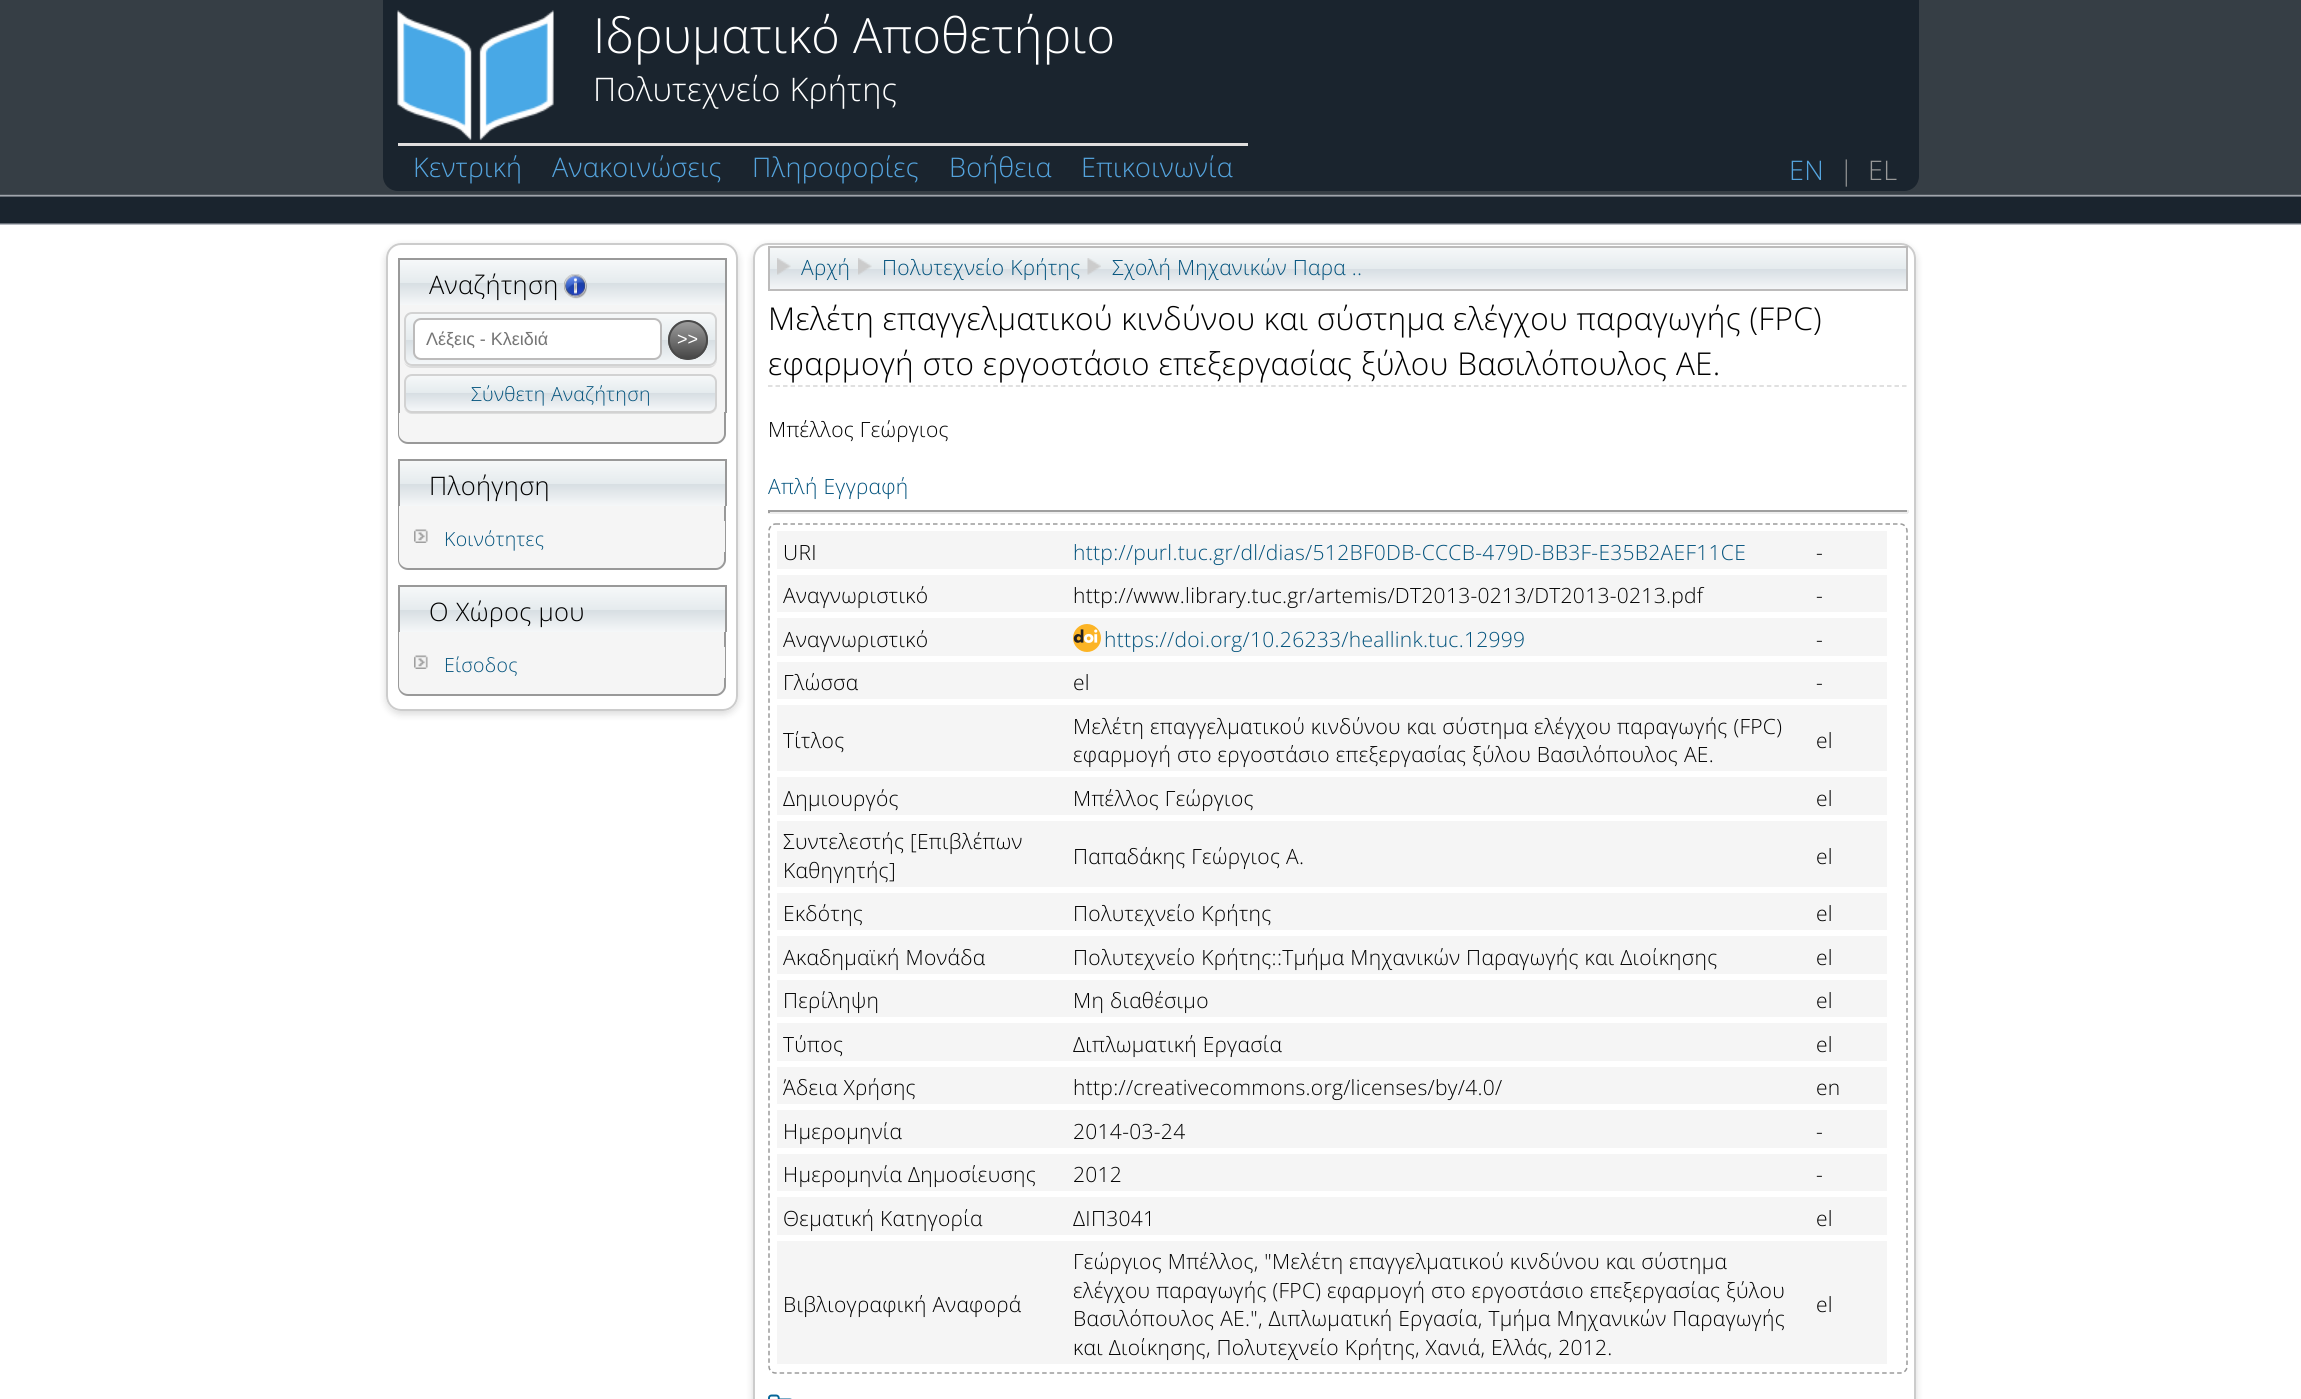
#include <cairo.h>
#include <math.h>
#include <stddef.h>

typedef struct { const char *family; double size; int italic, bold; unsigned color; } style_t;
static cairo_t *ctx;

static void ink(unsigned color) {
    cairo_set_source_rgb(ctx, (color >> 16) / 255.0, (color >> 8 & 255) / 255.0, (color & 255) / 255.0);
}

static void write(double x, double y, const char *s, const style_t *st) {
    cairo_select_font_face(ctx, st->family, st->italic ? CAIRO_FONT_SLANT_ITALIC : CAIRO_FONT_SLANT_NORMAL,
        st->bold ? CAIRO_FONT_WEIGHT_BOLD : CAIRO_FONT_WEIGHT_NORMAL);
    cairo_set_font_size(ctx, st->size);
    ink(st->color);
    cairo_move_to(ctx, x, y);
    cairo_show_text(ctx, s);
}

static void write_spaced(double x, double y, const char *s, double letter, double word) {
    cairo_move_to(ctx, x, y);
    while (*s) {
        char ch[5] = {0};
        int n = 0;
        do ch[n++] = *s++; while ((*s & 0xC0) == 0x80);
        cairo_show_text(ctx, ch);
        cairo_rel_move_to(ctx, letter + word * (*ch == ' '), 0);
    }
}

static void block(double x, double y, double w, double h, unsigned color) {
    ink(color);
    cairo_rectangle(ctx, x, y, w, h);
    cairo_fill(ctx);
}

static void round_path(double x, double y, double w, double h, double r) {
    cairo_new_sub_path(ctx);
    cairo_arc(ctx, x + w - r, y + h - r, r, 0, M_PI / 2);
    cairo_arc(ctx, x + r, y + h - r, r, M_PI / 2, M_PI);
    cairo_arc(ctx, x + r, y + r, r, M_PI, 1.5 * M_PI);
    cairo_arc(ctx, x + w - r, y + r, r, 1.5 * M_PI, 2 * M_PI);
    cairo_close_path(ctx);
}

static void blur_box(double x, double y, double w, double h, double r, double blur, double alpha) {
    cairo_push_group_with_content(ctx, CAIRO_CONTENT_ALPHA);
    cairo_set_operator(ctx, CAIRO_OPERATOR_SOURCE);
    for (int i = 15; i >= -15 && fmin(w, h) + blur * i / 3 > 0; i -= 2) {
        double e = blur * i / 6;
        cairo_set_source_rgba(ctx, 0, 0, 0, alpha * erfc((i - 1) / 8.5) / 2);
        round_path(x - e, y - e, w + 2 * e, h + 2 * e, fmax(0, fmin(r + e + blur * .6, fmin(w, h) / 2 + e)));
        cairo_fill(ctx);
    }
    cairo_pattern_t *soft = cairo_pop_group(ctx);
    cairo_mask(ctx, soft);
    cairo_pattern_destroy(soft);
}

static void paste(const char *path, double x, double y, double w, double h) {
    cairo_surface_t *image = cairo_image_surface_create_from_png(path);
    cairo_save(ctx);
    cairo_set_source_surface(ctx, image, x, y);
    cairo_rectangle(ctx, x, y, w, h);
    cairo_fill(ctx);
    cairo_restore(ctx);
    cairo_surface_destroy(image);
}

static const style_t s1 = {"Liberation Sans", 18, 0, 0, 0x757575};
static const style_t s2 = {"Liberation Sans", 18, 0, 0, 0xffffff};

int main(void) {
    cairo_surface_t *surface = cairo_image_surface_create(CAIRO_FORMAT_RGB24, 2301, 1399);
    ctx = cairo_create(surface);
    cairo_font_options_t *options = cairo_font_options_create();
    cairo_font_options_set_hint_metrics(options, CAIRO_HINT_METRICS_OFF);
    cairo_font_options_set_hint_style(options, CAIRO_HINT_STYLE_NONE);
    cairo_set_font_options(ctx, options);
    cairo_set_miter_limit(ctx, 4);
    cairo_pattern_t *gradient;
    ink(0xffffff);
    cairo_paint(ctx);
    paste("pic1.png", 0, 0, 2301, 225);
    ink(0x1a242e);
    cairo_new_path(ctx);
    cairo_move_to(ctx, 383, 0);
    cairo_line_to(ctx, 1919, 0);
    cairo_line_to(ctx, 1919, 176);
    cairo_curve_to(ctx, 1919, 184.5, 1912.5, 191, 1904, 191);
    cairo_line_to(ctx, 398, 191);
    cairo_curve_to(ctx, 389.5, 191, 383, 184.5, 383, 176);
    cairo_close_path(ctx);
    cairo_fill(ctx);
    paste("pic2.png", 397, 10, 157, 131);
    cairo_select_font_face(ctx, "Open Sans Light", CAIRO_FONT_SLANT_NORMAL, CAIRO_FONT_WEIGHT_NORMAL);
    cairo_set_font_size(ctx, 48.6);
    ink(0xffffff);
    write_spaced(593, 53, "Ιδρυματικό Αποθετήριο", 0.3, 0);
    cairo_set_font_size(ctx, 32.5);
    write_spaced(593, 101, "Πολυτεχνείο Κρήτης", 0.3, 0);
    block(398, 143, 850, 3, 0xe0dede);
    cairo_set_font_size(ctx, 27);
    ink(0x54a4de);
    write_spaced(413, 177, "Κεντρική", 0.3, 0);
    write_spaced(552, 177, "Ανακοινώσεις", 0.3, 0);
    write_spaced(752, 177, "Πληροφορίες", 0.3, 0);
    write_spaced(949, 177, "Βοήθεια", 0.3, 0);
    write_spaced(1081, 177, "Επικοινωνία", 0.3, 0);
    write_spaced(1789, 180, "EN", 0.3, 0);
    ink(0x999999);
    write_spaced(1839, 180, "|", 0.3, 0);
    write_spaced(1868, 180, "EL", 0.3, 0);
    cairo_save(ctx);
    cairo_set_fill_rule(ctx, CAIRO_FILL_RULE_EVEN_ODD);
    cairo_new_path(ctx);
    cairo_move_to(ctx, 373, 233);
    cairo_line_to(ctx, 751, 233);
    cairo_line_to(ctx, 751, 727);
    cairo_line_to(ctx, 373, 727);
    cairo_close_path(ctx);
    cairo_move_to(ctx, 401, 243);
    cairo_line_to(ctx, 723, 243);
    cairo_curve_to(ctx, 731.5, 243, 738, 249.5, 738, 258);
    cairo_line_to(ctx, 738, 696);
    cairo_curve_to(ctx, 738, 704.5, 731.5, 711, 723, 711);
    cairo_line_to(ctx, 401, 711);
    cairo_curve_to(ctx, 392.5, 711, 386, 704.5, 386, 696);
    cairo_line_to(ctx, 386, 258);
    cairo_curve_to(ctx, 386, 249.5, 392.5, 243, 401, 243);
    cairo_close_path(ctx);
    cairo_clip(ctx);
    ink(0x000000);
    blur_box(386, 246, 352, 468, 15, 4, 0.15);
    cairo_restore(ctx);
    round_path(387.5, 244.5, 349, 465, 13.5);
    ink(0xffffff);
    cairo_set_line_width(ctx, 3);
    cairo_stroke(ctx);
    round_path(387, 244, 350, 466, 14);
    cairo_set_source_rgba(ctx, 0, 0, 0, 0.2);
    cairo_set_line_width(ctx, 2);
    cairo_stroke(ctx);
    gradient = cairo_pattern_create_linear(562, 260, 562, 305);
    cairo_pattern_add_color_stop_rgba(gradient, 0, 0.965, 0.973, 0.976, 1);
    cairo_pattern_add_color_stop_rgba(gradient, 0.5, 0.898, 0.922, 0.933, 1);
    cairo_pattern_add_color_stop_rgba(gradient, 0.51, 0.843, 0.871, 0.89, 1);
    cairo_pattern_add_color_stop_rgba(gradient, 1, 0.961, 0.969, 0.976, 1);
    cairo_set_source(ctx, gradient);
    cairo_pattern_destroy(gradient);
    cairo_rectangle(ctx, 400, 260, 325, 45);
    cairo_fill(ctx);
    block(398, 258, 328, 2, 0x999999);
    block(725, 258, 2, 155, 0x999999);
    block(398, 258, 2, 155, 0x999999);
    cairo_set_font_size(ctx, 25.5);
    ink(0x000000);
    write_spaced(429, 294, "Αναζήτηση", 0.3, 0);
    paste("pic3.png", 564, 274, 23, 25);
    block(400, 305, 325, 108, 0xf5f5f5);
    ink(0xdddddd);
    cairo_new_path(ctx);
    cairo_move_to(ctx, 404, 362);
    cairo_curve_to(ctx, 405, 365, 408, 368, 412, 368);
    cairo_line_to(ctx, 709, 368);
    cairo_curve_to(ctx, 713, 368, 717, 364, 717, 360);
    cairo_line_to(ctx, 717, 358);
    cairo_curve_to(ctx, 717, 363, 714, 366, 710, 366);
    cairo_line_to(ctx, 411, 366);
    cairo_curve_to(ctx, 408, 366, 405, 364, 404, 362);
    cairo_close_path(ctx);
    cairo_fill(ctx);
    cairo_save(ctx);
    round_path(404, 312, 313, 54, 8);
    cairo_clip(ctx);
    gradient = cairo_pattern_create_linear(560, 314, 560, 365);
    cairo_pattern_add_color_stop_rgba(gradient, 0, 0.965, 0.973, 0.976, 1);
    cairo_pattern_add_color_stop_rgba(gradient, 0.5, 0.898, 0.922, 0.933, 1);
    cairo_pattern_add_color_stop_rgba(gradient, 0.51, 0.843, 0.871, 0.89, 1);
    cairo_pattern_add_color_stop_rgba(gradient, 1, 0.961, 0.969, 0.976, 1);
    cairo_set_source(ctx, gradient);
    cairo_pattern_destroy(gradient);
    cairo_rectangle(ctx, 404, 314, 313, 51);
    cairo_fill(ctx);
    cairo_restore(ctx);
    round_path(405, 313, 311, 52, 7);
    ink(0xd2d2d2);
    cairo_stroke(ctx);
    ink(0xffffff);
    round_path(414, 319, 247, 40, 7);
    cairo_fill_preserve(ctx);
    ink(0xbcbbbb);
    cairo_stroke(ctx);
    write(426, 345, "Λέξεις - Κλειδιά", &s1);
    cairo_save(ctx);
    round_path(668, 320, 40, 40, 20);
    cairo_clip(ctx);
    gradient = cairo_pattern_create_linear(669, 321, 669, 359);
    cairo_pattern_add_color_stop_rgba(gradient, 0, 0.62, 0.62, 0.62, 1);
    cairo_pattern_add_color_stop_rgba(gradient, 1, 0.271, 0.271, 0.271, 1);
    cairo_set_source(ctx, gradient);
    cairo_pattern_destroy(gradient);
    cairo_rectangle(ctx, 668, 321, 40, 38);
    cairo_fill(ctx);
    cairo_restore(ctx);
    cairo_arc(ctx, 688, 340, 19, 0, 2 * M_PI);
    ink(0x494949);
    cairo_stroke(ctx);
    write(677, 345, ">>", &s2);
    ink(0xf5f5f5);
    cairo_new_path(ctx);
    cairo_move_to(ctx, 398, 413);
    cairo_line_to(ctx, 726, 413);
    cairo_line_to(ctx, 726, 433);
    cairo_curve_to(ctx, 726, 439, 721, 444, 715, 444);
    cairo_line_to(ctx, 409, 444);
    cairo_curve_to(ctx, 403, 444, 398, 439, 398, 433);
    cairo_close_path(ctx);
    cairo_fill(ctx);
    ink(0x999999);
    cairo_set_fill_rule(ctx, CAIRO_FILL_RULE_EVEN_ODD);
    cairo_new_path(ctx);
    cairo_move_to(ctx, 398, 412);
    cairo_line_to(ctx, 726, 412);
    cairo_line_to(ctx, 726, 434);
    cairo_curve_to(ctx, 726, 439, 721, 444, 716, 444);
    cairo_line_to(ctx, 408, 444);
    cairo_curve_to(ctx, 402, 444, 398, 439, 398, 434);
    cairo_close_path(ctx);
    cairo_move_to(ctx, 399, 412);
    cairo_line_to(ctx, 724, 412);
    cairo_line_to(ctx, 724, 434);
    cairo_curve_to(ctx, 724, 438, 720, 442, 716, 442);
    cairo_line_to(ctx, 408, 442);
    cairo_curve_to(ctx, 403, 442, 399, 438, 399, 434);
    cairo_close_path(ctx);
    cairo_fill(ctx);
    ink(0xdddddd);
    cairo_set_fill_rule(ctx, CAIRO_FILL_RULE_WINDING);
    cairo_new_path(ctx);
    cairo_move_to(ctx, 404, 409);
    cairo_curve_to(ctx, 406, 412, 409, 414, 412, 414);
    cairo_line_to(ctx, 709, 414);
    cairo_curve_to(ctx, 713, 414, 717, 410, 717, 406);
    cairo_line_to(ctx, 717, 405);
    cairo_curve_to(ctx, 717, 409, 714, 412, 710, 412);
    cairo_line_to(ctx, 411, 412);
    cairo_curve_to(ctx, 408, 412, 406, 411, 404, 409);
    cairo_close_path(ctx);
    cairo_fill(ctx);
    cairo_save(ctx);
    round_path(404, 374, 313, 39, 8);
    cairo_clip(ctx);
    gradient = cairo_pattern_create_linear(560, 375, 560, 411);
    cairo_pattern_add_color_stop_rgba(gradient, 0, 0.965, 0.973, 0.976, 1);
    cairo_pattern_add_color_stop_rgba(gradient, 0.5, 0.898, 0.922, 0.933, 1);
    cairo_pattern_add_color_stop_rgba(gradient, 0.51, 0.843, 0.871, 0.89, 1);
    cairo_pattern_add_color_stop_rgba(gradient, 1, 0.961, 0.969, 0.976, 1);
    cairo_set_source(ctx, gradient);
    cairo_pattern_destroy(gradient);
    cairo_rectangle(ctx, 404, 375, 313, 36);
    cairo_fill(ctx);
    cairo_restore(ctx);
    round_path(405, 375, 311, 37, 7);
    ink(0xd2d2d2);
    cairo_stroke(ctx);
    cairo_select_font_face(ctx, "Open Sans Light", CAIRO_FONT_SLANT_NORMAL, CAIRO_FONT_WEIGHT_NORMAL);
    cairo_set_font_size(ctx, 19.5);
    ink(0x03537d);
    write_spaced(471, 401, "Σύνθετη Αναζήτηση", 0.3, 0);
    gradient = cairo_pattern_create_linear(562, 461, 562, 506);
    cairo_pattern_add_color_stop_rgba(gradient, 0, 0.965, 0.973, 0.976, 1);
    cairo_pattern_add_color_stop_rgba(gradient, 0.5, 0.898, 0.922, 0.933, 1);
    cairo_pattern_add_color_stop_rgba(gradient, 0.51, 0.843, 0.871, 0.89, 1);
    cairo_pattern_add_color_stop_rgba(gradient, 1, 0.961, 0.969, 0.976, 1);
    cairo_set_source(ctx, gradient);
    cairo_pattern_destroy(gradient);
    cairo_rectangle(ctx, 400, 461, 325, 45);
    cairo_fill(ctx);
    block(398, 459, 328, 2, 0x999999);
    block(725, 459, 2, 47, 0x999999);
    block(398, 459, 2, 47, 0x999999);
    cairo_set_font_size(ctx, 25.5);
    ink(0x000000);
    write_spaced(429, 495, "Πλοήγηση", 0.3, 0);
    ink(0xf5f5f5);
    cairo_new_path(ctx);
    cairo_move_to(ctx, 398, 506);
    cairo_line_to(ctx, 726, 506);
    cairo_line_to(ctx, 726, 559);
    cairo_curve_to(ctx, 726, 565, 721, 570, 715, 570);
    cairo_line_to(ctx, 409, 570);
    cairo_curve_to(ctx, 403, 570, 398, 565, 398, 559);
    cairo_close_path(ctx);
    cairo_fill(ctx);
    ink(0x999999);
    cairo_set_fill_rule(ctx, CAIRO_FILL_RULE_EVEN_ODD);
    cairo_new_path(ctx);
    cairo_move_to(ctx, 398, 506);
    cairo_line_to(ctx, 726, 506);
    cairo_line_to(ctx, 726, 560);
    cairo_curve_to(ctx, 726, 565, 721, 570, 716, 570);
    cairo_line_to(ctx, 408, 570);
    cairo_curve_to(ctx, 402, 570, 398, 565, 398, 560);
    cairo_close_path(ctx);
    cairo_move_to(ctx, 399, 506);
    cairo_line_to(ctx, 724, 506);
    cairo_line_to(ctx, 724, 560);
    cairo_curve_to(ctx, 724, 564, 720, 568, 716, 568);
    cairo_line_to(ctx, 408, 568);
    cairo_curve_to(ctx, 403, 568, 399, 564, 399, 560);
    cairo_close_path(ctx);
    cairo_fill(ctx);
    block(724, 521, 1, 31, 0xf5f5f5);
    paste("pic4.png", 414, 529, 14, 14);
    cairo_set_font_size(ctx, 19.5);
    ink(0x03537d);
    write_spaced(444, 546, "Κοινότητες", 0.3, 0);
    gradient = cairo_pattern_create_linear(562, 587, 562, 632);
    cairo_pattern_add_color_stop_rgba(gradient, 0, 0.965, 0.973, 0.976, 1);
    cairo_pattern_add_color_stop_rgba(gradient, 0.5, 0.898, 0.922, 0.933, 1);
    cairo_pattern_add_color_stop_rgba(gradient, 0.51, 0.843, 0.871, 0.89, 1);
    cairo_pattern_add_color_stop_rgba(gradient, 1, 0.961, 0.969, 0.976, 1);
    cairo_set_source(ctx, gradient);
    cairo_pattern_destroy(gradient);
    cairo_rectangle(ctx, 400, 587, 325, 45);
    cairo_fill(ctx);
    block(398, 585, 328, 2, 0x999999);
    block(725, 585, 2, 47, 0x999999);
    block(398, 585, 2, 47, 0x999999);
    cairo_set_font_size(ctx, 25.5);
    ink(0x000000);
    write_spaced(429, 621, "Ο Χώρος μου", 0.3, 0);
    ink(0xf5f5f5);
    cairo_new_path(ctx);
    cairo_move_to(ctx, 398, 632);
    cairo_line_to(ctx, 726, 632);
    cairo_line_to(ctx, 726, 685);
    cairo_curve_to(ctx, 726, 691, 721, 696, 715, 696);
    cairo_line_to(ctx, 409, 696);
    cairo_curve_to(ctx, 403, 696, 398, 691, 398, 685);
    cairo_close_path(ctx);
    cairo_fill(ctx);
    ink(0x999999);
    cairo_new_path(ctx);
    cairo_move_to(ctx, 398, 632);
    cairo_line_to(ctx, 726, 632);
    cairo_line_to(ctx, 726, 686);
    cairo_curve_to(ctx, 726, 691, 721, 696, 716, 696);
    cairo_line_to(ctx, 408, 696);
    cairo_curve_to(ctx, 402, 696, 398, 691, 398, 686);
    cairo_close_path(ctx);
    cairo_move_to(ctx, 399, 632);
    cairo_line_to(ctx, 724, 632);
    cairo_line_to(ctx, 724, 686);
    cairo_curve_to(ctx, 724, 690, 720, 694, 716, 694);
    cairo_line_to(ctx, 408, 694);
    cairo_curve_to(ctx, 403, 694, 399, 690, 399, 686);
    cairo_close_path(ctx);
    cairo_fill(ctx);
    block(724, 647, 1, 31, 0xf5f5f5);
    paste("pic4.png", 414, 655, 14, 14);
    cairo_set_font_size(ctx, 19.5);
    ink(0x03537d);
    write_spaced(444, 672, "Είσοδος", 0.3, 0);
    cairo_save(ctx);
    cairo_new_path(ctx);
    cairo_move_to(ctx, 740, 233);
    cairo_line_to(ctx, 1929, 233);
    cairo_line_to(ctx, 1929, 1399);
    cairo_line_to(ctx, 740, 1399);
    cairo_close_path(ctx);
    cairo_move_to(ctx, 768, 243);
    cairo_line_to(ctx, 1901, 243);
    cairo_curve_to(ctx, 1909.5, 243, 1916, 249.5, 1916, 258);
    cairo_line_to(ctx, 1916, 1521);
    cairo_curve_to(ctx, 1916, 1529.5, 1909.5, 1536, 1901, 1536);
    cairo_line_to(ctx, 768, 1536);
    cairo_curve_to(ctx, 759.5, 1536, 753, 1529.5, 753, 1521);
    cairo_line_to(ctx, 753, 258);
    cairo_curve_to(ctx, 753, 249.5, 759.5, 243, 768, 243);
    cairo_close_path(ctx);
    cairo_clip(ctx);
    ink(0x000000);
    blur_box(753, 246, 1163, 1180, 15, 4, 0.15);
    cairo_restore(ctx);
    round_path(754.5, 244.5, 1160, 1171, 13.5);
    ink(0xffffff);
    cairo_set_line_width(ctx, 3);
    cairo_stroke(ctx);
    round_path(754, 244, 1161, 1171, 14);
    cairo_set_source_rgba(ctx, 0, 0, 0, 0.2);
    cairo_set_line_width(ctx, 2);
    cairo_stroke(ctx);
    gradient = cairo_pattern_create_linear(1338, 247, 1338, 290);
    cairo_pattern_add_color_stop_rgba(gradient, 0, 0.965, 0.973, 0.976, 1);
    cairo_pattern_add_color_stop_rgba(gradient, 0.5, 0.898, 0.922, 0.933, 1);
    cairo_pattern_add_color_stop_rgba(gradient, 0.51, 0.843, 0.871, 0.89, 1);
    cairo_pattern_add_color_stop_rgba(gradient, 1, 0.961, 0.969, 0.976, 1);
    cairo_set_source(ctx, gradient);
    cairo_pattern_destroy(gradient);
    cairo_rectangle(ctx, 770, 248, 1136, 41);
    cairo_fill(ctx);
    cairo_rectangle(ctx, 769, 247, 1138, 43);
    ink(0xbcbbbb);
    cairo_stroke(ctx);
    paste("pic5.png", 777, 258, 14, 17);
    cairo_set_font_size(ctx, 21);
    ink(0x03537d);
    write_spaced(801, 275, "Αρχή", 0.3, 0);
    paste("pic5.png", 858, 258, 14, 17);
    write_spaced(882, 275, "Πολυτεχνείο Κρήτης", 0.3, 0);
    paste("pic6.png", 1087, 258, 14, 17);
    write_spaced(1112, 275, "Σχολή Μηχανικών Παρα ..", 0.3, 0);
    cairo_new_path(ctx);
    cairo_move_to(ctx, 768, 386);
    cairo_line_to(ctx, 1908, 386);
    ink(0xd6d6d6);
    cairo_set_line_width(ctx, 1.5);
    cairo_set_dash(ctx, (double[]){4.5, 3.01}, 2, 0);
    cairo_stroke(ctx);
    cairo_set_font_size(ctx, 31.5);
    ink(0x000000);
    write_spaced(768, 330, "Μελέτη επαγγελματικού κινδύνου και σύστημα ελέγχου παραγωγής (FPC)", 0.3, 0);
    write_spaced(768, 375, "εφαρμογή στο εργοστάσιο επεξεργασίας ξύλου Βασιλόπουλος ΑΕ.", 0.3, 0);
    cairo_set_font_size(ctx, 21);
    write_spaced(768, 437, "Μπέλλος Γεώργιος", 0.3, 0);
    ink(0x03537d);
    write_spaced(768, 494, "Απλή Εγγραφή", 0.3, 0);
    block(768, 510, 1140, 2, 0x9f9f9f);
    block(1907, 510, 2, 3, 0xeeeeee);
    block(768, 512, 1140, 2, 0xeeeeee);
    block(768, 510, 2, 3, 0x9f9f9f);
    cairo_new_path(ctx);
    cairo_move_to(ctx, 775.5, 524);
    cairo_line_to(ctx, 1900.5, 524);
    cairo_curve_to(ctx, 1904, 524, 1907, 527.5, 1907, 531);
    cairo_line_to(ctx, 1907, 1366.5);
    cairo_curve_to(ctx, 1907, 1370, 1904, 1373, 1900.5, 1373);
    cairo_line_to(ctx, 775.5, 1373);
    cairo_curve_to(ctx, 772, 1373, 769, 1370, 769, 1366.5);
    cairo_line_to(ctx, 769, 531);
    cairo_curve_to(ctx, 769, 527.5, 772, 524, 775.5, 524);
    cairo_close_path(ctx);
    ink(0x999999);
    cairo_set_dash(ctx, (double[]){4.5, 3}, 2, 0);
    cairo_stroke(ctx);
    block(777, 531, 1110, 38, 0xf5f5f5);
    ink(0x000000);
    write_spaced(783, 560, "URI", 0.3, 0);
    ink(0x03537d);
    write_spaced(1073, 560, "http://purl.tuc.gr/dl/dias/512BF0DB-CCCB-479D-BB3F-E35B2AEF11CE", 0.3, 0);
    ink(0x000000);
    write_spaced(1816, 560, "-", 0.3, 0);
    block(777, 575, 1110, 37, 0xf5f5f5);
    ink(0x000000);
    write_spaced(783, 603, "Αναγνωριστικό", 0.3, 0);
    write_spaced(1073, 603, "http://www.library.tuc.gr/artemis/DT2013-0213/DT2013-0213.pdf", 0.3, 0);
    write_spaced(1816, 603, "-", 0.3, 0);
    block(777, 618, 1110, 38, 0xf5f5f5);
    ink(0x000000);
    write_spaced(783, 647, "Αναγνωριστικό", 0.3, 0);
    paste("pic7.png", 1073, 624, 28, 28);
    ink(0x03537d);
    write_spaced(1104, 647, "https://doi.org/10.26233/heallink.tuc.12999", 0.3, 0);
    ink(0x000000);
    write_spaced(1816, 647, "-", 0.3, 0);
    block(777, 662, 1110, 37, 0xf5f5f5);
    ink(0x000000);
    write_spaced(783, 690, "Γλώσσα", 0.3, 0);
    write_spaced(1073, 690, "el", 0.3, 0);
    write_spaced(1816, 690, "-", 0.3, 0);
    block(777, 705, 1110, 66, 0xf5f5f5);
    ink(0x000000);
    write_spaced(783, 748, "Τίτλος", 0.3, 0);
    write_spaced(1073, 734, "Μελέτη επαγγελματικού κινδύνου και σύστημα ελέγχου παραγωγής (FPC)", 0.3, 0);
    write_spaced(1073, 762, "εφαρμογή στο εργοστάσιο επεξεργασίας ξύλου Βασιλόπουλος ΑΕ.", 0.3, 0);
    write_spaced(1816, 748, "el", 0.3, 0);
    block(777, 777, 1110, 38, 0xf5f5f5);
    ink(0x000000);
    write_spaced(783, 806, "Δημιουργός", 0.3, 0);
    write_spaced(1073, 806, "Μπέλλος Γεώργιος", 0.3, 0);
    write_spaced(1816, 806, "el", 0.3, 0);
    block(777, 821, 1110, 66, 0xf5f5f5);
    ink(0x000000);
    write_spaced(783, 849, "Συντελεστής [Επιβλέπων", 0.3, 0);
    write_spaced(783, 878, "Καθηγητής]", 0.3, 0);
    write_spaced(1073, 864, "Παπαδάκης Γεώργιος Α.", 0.3, 0);
    write_spaced(1816, 864, "el", 0.3, 0);
    block(777, 893, 1110, 37, 0xf5f5f5);
    ink(0x000000);
    write_spaced(783, 921, "Εκδότης", 0.3, 0);
    write_spaced(1073, 921, "Πολυτεχνείο Κρήτης", 0.3, 0);
    write_spaced(1816, 921, "el", 0.3, 0);
    block(777, 936, 1110, 38, 0xf5f5f5);
    ink(0x000000);
    write_spaced(783, 965, "Ακαδημαϊκή Μονάδα", 0.3, 0);
    write_spaced(1073, 965, "Πολυτεχνείο Κρήτης::Τμήμα Μηχανικών Παραγωγής και Διοίκησης", 0.3, 0);
    write_spaced(1816, 965, "el", 0.3, 0);
    block(777, 980, 1110, 37, 0xf5f5f5);
    ink(0x000000);
    write_spaced(783, 1008, "Περίληψη", 0.3, 0);
    write_spaced(1073, 1008, "Μη διαθέσιμο", 0.3, 0);
    write_spaced(1816, 1008, "el", 0.3, 0);
    block(777, 1023, 1110, 38, 0xf5f5f5);
    ink(0x000000);
    write_spaced(783, 1052, "Τύπος", 0.3, 0);
    write_spaced(1073, 1052, "Διπλωματική Εργασία", 0.3, 0);
    write_spaced(1816, 1052, "el", 0.3, 0);
    block(777, 1067, 1110, 37, 0xf5f5f5);
    ink(0x000000);
    write_spaced(783, 1095, "Άδεια Χρήσης", 0.3, 0);
    write_spaced(1073, 1095, "http://creativecommons.org/licenses/by/4.0/", 0.3, 0);
    write_spaced(1816, 1095, "en", 0.3, 0);
    block(777, 1110, 1110, 38, 0xf5f5f5);
    ink(0x000000);
    write_spaced(783, 1139, "Ημερομηνία", 0.3, 0);
    write_spaced(1073, 1139, "2014-03-24", 0.3, 0);
    write_spaced(1816, 1139, "-", 0.3, 0);
    block(777, 1154, 1110, 37, 0xf5f5f5);
    ink(0x000000);
    write_spaced(783, 1182, "Ημερομηνία Δημοσίευσης", 0.3, 0);
    write_spaced(1073, 1182, "2012", 0.3, 0);
    write_spaced(1816, 1182, "-", 0.3, 0);
    block(777, 1197, 1110, 38, 0xf5f5f5);
    ink(0x000000);
    write_spaced(783, 1226, "Θεματική Κατηγορία", 0.3, 0);
    write_spaced(1073, 1226, "ΔΙΠ3041", 0.3, 0);
    write_spaced(1816, 1226, "el", 0.3, 0);
    block(777, 1241, 1110, 123, 0xf5f5f5);
    ink(0x000000);
    write_spaced(783, 1312, "Βιβλιογραφική Αναφορά", 0.3, 0);
    write_spaced(1073, 1269, "Γεώργιος Μπέλλος, \"Μελέτη επαγγελματικού κινδύνου και σύστημα", 0.3, 0);
    write_spaced(1073, 1298, "ελέγχου παραγωγής (FPC) εφαρμογή στο εργοστάσιο επεξεργασίας ξύλου", 0.3, 0);
    write_spaced(1073, 1326, "Βασιλόπουλος ΑΕ.\", Διπλωματική Εργασία, Τμήμα Μηχανικών Παραγωγής", 0.3, 0);
    write_spaced(1073, 1355, "και Διοίκησης, Πολυτεχνείο Κρήτης, Χανιά, Ελλάς, 2012.", 0.3, 0);
    write_spaced(1816, 1312, "el", 0.3, 0);
    paste("pic8.png", 768, 1394, 24, 5);
    cairo_surface_write_to_png(surface, "screenshot.png");
    cairo_font_options_destroy(options);
    cairo_destroy(ctx);
    cairo_surface_destroy(surface);
    return 0;
}
